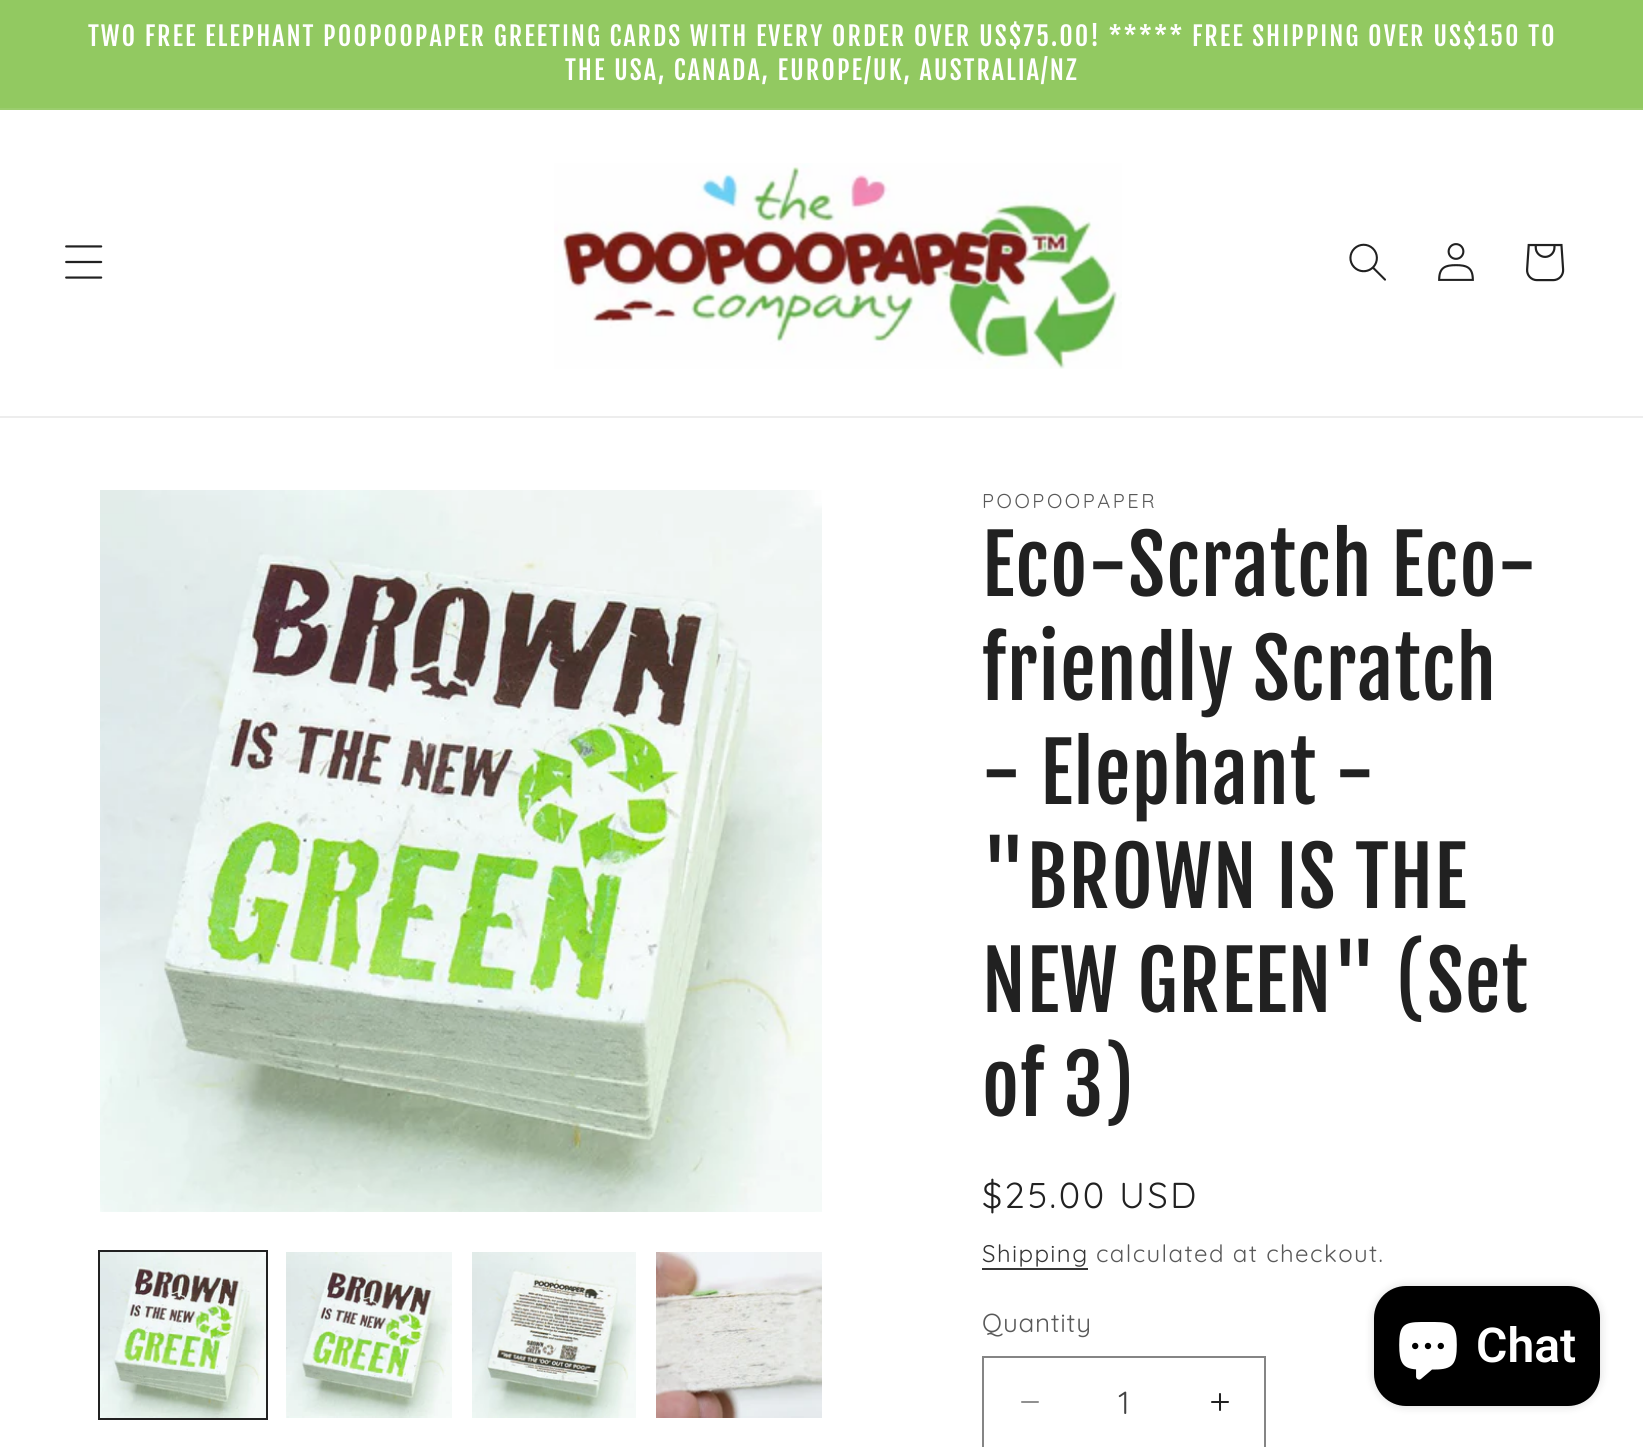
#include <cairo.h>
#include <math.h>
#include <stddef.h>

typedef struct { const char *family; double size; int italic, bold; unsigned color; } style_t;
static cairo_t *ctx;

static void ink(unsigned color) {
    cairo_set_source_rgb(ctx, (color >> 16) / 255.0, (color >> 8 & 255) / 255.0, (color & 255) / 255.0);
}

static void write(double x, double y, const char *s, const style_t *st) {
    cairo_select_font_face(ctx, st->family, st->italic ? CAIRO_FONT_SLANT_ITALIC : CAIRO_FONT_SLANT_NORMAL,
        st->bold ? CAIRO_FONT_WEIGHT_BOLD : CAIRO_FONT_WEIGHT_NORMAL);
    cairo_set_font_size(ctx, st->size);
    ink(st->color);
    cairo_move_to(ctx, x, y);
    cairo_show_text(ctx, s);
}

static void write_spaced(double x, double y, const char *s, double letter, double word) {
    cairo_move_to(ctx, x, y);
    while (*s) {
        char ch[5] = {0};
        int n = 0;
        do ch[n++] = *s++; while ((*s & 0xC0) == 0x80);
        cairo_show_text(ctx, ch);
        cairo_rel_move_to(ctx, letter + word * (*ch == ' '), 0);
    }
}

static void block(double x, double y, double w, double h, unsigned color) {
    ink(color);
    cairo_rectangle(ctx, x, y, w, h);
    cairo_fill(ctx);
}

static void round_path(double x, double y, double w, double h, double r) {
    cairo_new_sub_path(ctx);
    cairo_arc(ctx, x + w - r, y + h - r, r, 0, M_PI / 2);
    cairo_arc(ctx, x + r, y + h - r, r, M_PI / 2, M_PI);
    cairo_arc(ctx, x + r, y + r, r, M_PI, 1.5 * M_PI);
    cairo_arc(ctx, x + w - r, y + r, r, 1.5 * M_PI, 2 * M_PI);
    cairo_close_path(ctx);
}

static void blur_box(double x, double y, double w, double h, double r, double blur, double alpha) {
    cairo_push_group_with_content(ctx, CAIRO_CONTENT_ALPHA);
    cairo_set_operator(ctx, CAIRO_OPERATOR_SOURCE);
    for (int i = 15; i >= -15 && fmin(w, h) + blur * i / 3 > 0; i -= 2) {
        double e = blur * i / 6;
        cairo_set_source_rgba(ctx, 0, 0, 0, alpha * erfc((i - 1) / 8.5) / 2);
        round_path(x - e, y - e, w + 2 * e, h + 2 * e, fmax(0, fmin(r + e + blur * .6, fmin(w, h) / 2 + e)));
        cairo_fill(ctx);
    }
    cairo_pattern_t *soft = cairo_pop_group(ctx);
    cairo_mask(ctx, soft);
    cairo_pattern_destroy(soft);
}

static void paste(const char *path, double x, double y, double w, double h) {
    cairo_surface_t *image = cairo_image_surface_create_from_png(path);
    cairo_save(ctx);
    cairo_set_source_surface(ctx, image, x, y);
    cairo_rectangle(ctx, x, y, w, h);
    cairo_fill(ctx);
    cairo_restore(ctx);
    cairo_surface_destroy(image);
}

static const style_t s1 = {"Quicksand", 32, 0, 0, 0x424242};
static const style_t s2 = {"Roboto SemiBold", 48, 0, 0, 0xffffff};

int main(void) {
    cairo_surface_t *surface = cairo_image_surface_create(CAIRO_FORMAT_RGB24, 1643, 1447);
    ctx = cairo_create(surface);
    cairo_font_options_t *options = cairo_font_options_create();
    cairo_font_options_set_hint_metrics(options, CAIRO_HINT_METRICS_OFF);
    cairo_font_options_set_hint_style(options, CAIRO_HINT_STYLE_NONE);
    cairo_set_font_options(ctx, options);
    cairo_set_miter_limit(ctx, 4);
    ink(0xffffff);
    cairo_paint(ctx);
    block(0, 0, 1643, 108, 0x92c961);
    block(0, 108, 1643, 2, 0x9bcd6e);
    cairo_select_font_face(ctx, "Fjalla One", CAIRO_FONT_SLANT_NORMAL, CAIRO_FONT_WEIGHT_NORMAL);
    cairo_set_font_size(ctx, 26);
    ink(0xffffff);
    write_spaced(88, 46, "TWO FREE ELEPHANT POOPOOPAPER GREETING CARDS WITH EVERY ORDER OVER US$75.00! ***** FREE SHIPPING OVER US$150 TO", 2, 0);
    write_spaced(565, 80, "THE USA, CANADA, EUROPE/UK, AUSTRALIA/NZ", 2, 0);
    block(0, 416, 1643, 2, 0xededed);
    paste("pic1.png", 65, 245, 38, 34);
    paste("pic2.png", 554, 163, 568, 206);
    paste("pic3.png", 1349, 243, 37, 38);
    paste("pic4.png", 1438, 243, 36, 38);
    paste("pic5.png", 1526, 243, 39, 39);
    paste("pic6.png", 100, 490, 722, 722);
    cairo_rectangle(ctx, 99, 1251, 168, 168);
    ink(0x212121);
    cairo_stroke(ctx);
    paste("pic7.png", 100, 1252, 166, 166);
    paste("pic8.png", 286, 1252, 166, 166);
    paste("pic9.png", 472, 1252, 164, 166);
    paste("pic10.png", 656, 1252, 166, 166);
    cairo_select_font_face(ctx, "Quicksand", CAIRO_FONT_SLANT_NORMAL, CAIRO_FONT_WEIGHT_NORMAL);
    cairo_set_font_size(ctx, 20);
    ink(0x595959);
    write_spaced(982, 508, "POOPOOPAPER", 2.6, 0);
    cairo_select_font_face(ctx, "Fjalla One", CAIRO_FONT_SLANT_NORMAL, CAIRO_FONT_WEIGHT_NORMAL);
    cairo_set_font_size(ctx, 80);
    ink(0x212121);
    write_spaced(982, 596, "Eco-Scratch Eco-", 1.25, 0);
    write_spaced(982, 700, "friendly Scratch", 1.25, 0);
    write_spaced(982, 804, "- Elephant -", 1.25, 0);
    write_spaced(982, 908, "\"BROWN IS THE", 1.25, 0);
    write_spaced(982, 1012, "NEW GREEN\" (Set", 1.25, 0);
    write_spaced(982, 1116, "of 3)", 1.25, 0);
    cairo_select_font_face(ctx, "Quicksand", CAIRO_FONT_SLANT_NORMAL, CAIRO_FONT_WEIGHT_NORMAL);
    cairo_set_font_size(ctx, 36);
    write_spaced(982, 1208, "$25.00 USD", 2.6, 0);
    cairo_set_font_size(ctx, 24);
    ink(0x363636);
    write_spaced(982, 1262, "Shipping", 1.4, 0);
    block(982, 1268, 106, 2, 0x363636);
    ink(0x595959);
    write_spaced(1096, 1262, "calculated at checkout.", 1.4, 0);
    cairo_set_font_size(ctx, 26);
    write_spaced(982, 1332, "Quantity", 0.75, 0);
    paste("pic11.png", 1021, 1401, 18, 2);
    paste("pic12.png", 1211, 1393, 18, 18);
    cairo_rectangle(ctx, 983, 1357, 282, 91);
    ink(0x858585);
    cairo_stroke(ctx);
    write(1118, 1414, "1", &s1);
    ink(0x000000);
    blur_box(1374, 1286, 226, 120, 32, 5, 0.15);
    ink(0x000000);
    round_path(1374, 1286, 226, 120, 32);
    cairo_fill(ctx);
    paste("pic13.png", 1399, 1322, 58, 58);
    write(1476, 1362, "Chat", &s2);
    cairo_surface_write_to_png(surface, "screenshot.png");
    cairo_font_options_destroy(options);
    cairo_destroy(ctx);
    cairo_surface_destroy(surface);
    return 0;
}
